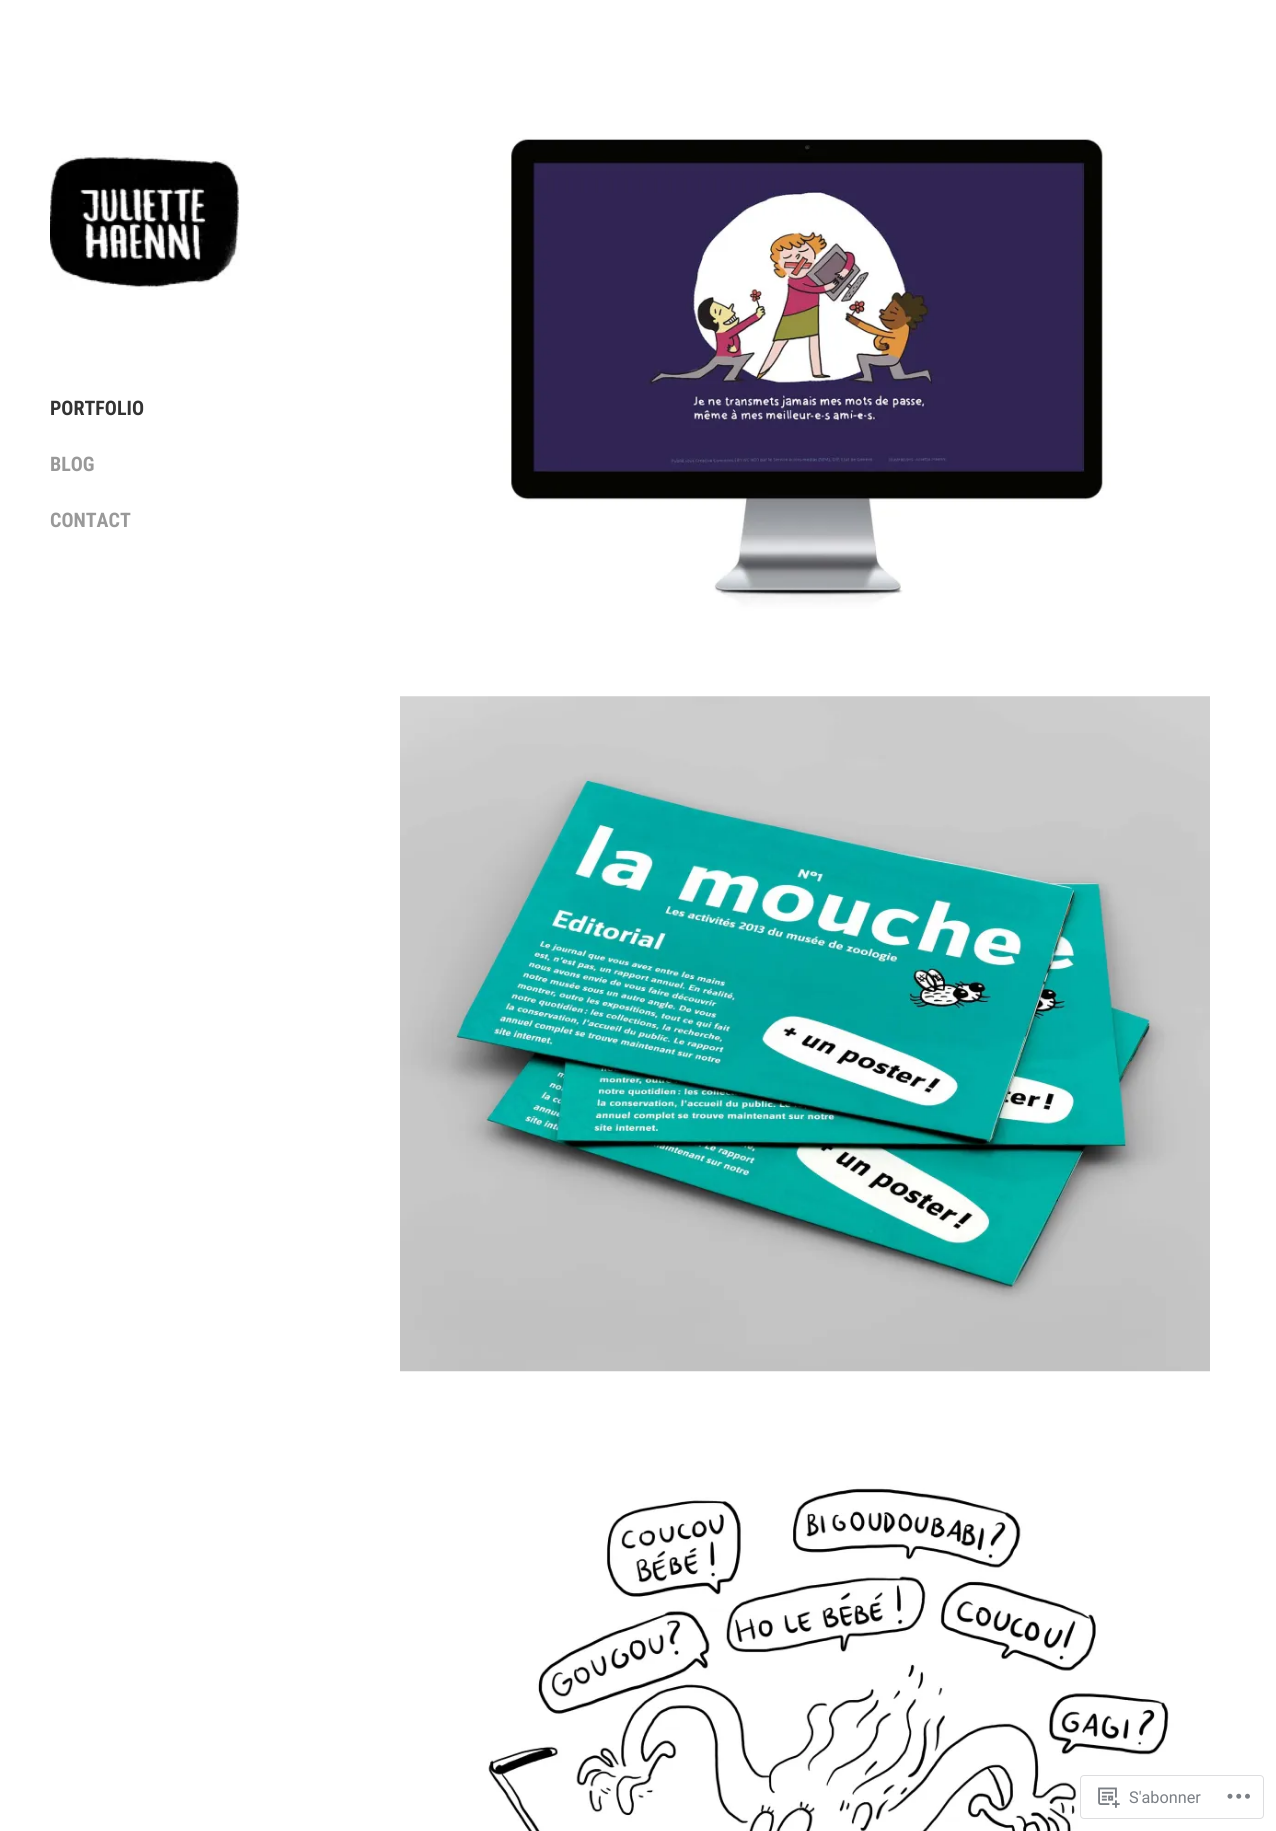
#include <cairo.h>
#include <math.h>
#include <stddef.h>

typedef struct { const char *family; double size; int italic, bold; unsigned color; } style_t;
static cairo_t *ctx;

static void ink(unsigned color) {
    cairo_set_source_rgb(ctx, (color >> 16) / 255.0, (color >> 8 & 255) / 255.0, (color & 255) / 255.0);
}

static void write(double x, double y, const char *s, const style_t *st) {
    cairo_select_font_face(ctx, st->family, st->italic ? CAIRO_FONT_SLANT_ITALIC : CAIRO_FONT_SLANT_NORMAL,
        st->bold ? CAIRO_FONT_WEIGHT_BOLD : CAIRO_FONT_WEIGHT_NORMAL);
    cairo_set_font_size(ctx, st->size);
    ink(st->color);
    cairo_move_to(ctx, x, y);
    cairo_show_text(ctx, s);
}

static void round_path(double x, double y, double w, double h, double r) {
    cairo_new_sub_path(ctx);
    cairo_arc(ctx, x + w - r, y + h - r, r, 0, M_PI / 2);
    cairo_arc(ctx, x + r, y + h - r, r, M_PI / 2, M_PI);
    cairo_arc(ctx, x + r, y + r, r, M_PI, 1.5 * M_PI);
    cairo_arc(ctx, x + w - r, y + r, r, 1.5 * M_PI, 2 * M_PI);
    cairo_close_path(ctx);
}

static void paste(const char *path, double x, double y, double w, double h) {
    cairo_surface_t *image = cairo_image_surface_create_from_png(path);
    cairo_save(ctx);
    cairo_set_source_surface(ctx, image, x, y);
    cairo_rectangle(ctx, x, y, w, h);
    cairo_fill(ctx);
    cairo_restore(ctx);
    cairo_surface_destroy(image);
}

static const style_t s1 = {"Roboto Condensed", 20, 0, 1, 0x333333};
static const style_t s2 = {"Roboto Condensed", 20, 0, 1, 0x999999};
static const style_t s3 = {"Roboto", 16.25, 0, 0, 0x7b7f85};

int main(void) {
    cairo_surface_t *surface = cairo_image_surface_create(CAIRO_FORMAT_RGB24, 1276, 1831);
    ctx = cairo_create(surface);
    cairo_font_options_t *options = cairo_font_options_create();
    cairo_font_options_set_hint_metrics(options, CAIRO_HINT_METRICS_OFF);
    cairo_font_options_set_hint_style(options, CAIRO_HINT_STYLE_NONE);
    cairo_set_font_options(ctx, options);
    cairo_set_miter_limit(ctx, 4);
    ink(0xffffff);
    cairo_paint(ctx);
    paste("pic1.png", 50, 155, 190, 135);
    write(50, 415, "PORTFOLIO", &s1);
    write(50, 471, "BLOG", &s2);
    write(50, 527, "CONTACT", &s2);
    paste("pic2.png", 400, 90, 810, 546);
    paste("pic3.png", 400, 696, 810, 676);
    paste("pic4.png", 400, 1431, 810, 400);
    round_path(1080.5, 1775.5, 183, 43, 3.5);
    ink(0xdddddf);
    cairo_set_line_width(ctx, 1);
    cairo_stroke(ctx);
    paste("pic5.png", 1098, 1787, 22, 21);
    write(1129, 1803, "S'abonner", &s3);
    paste("pic6.png", 1227, 1793, 23, 6);
    cairo_surface_write_to_png(surface, "screenshot.png");
    cairo_font_options_destroy(options);
    cairo_destroy(ctx);
    cairo_surface_destroy(surface);
    return 0;
}
